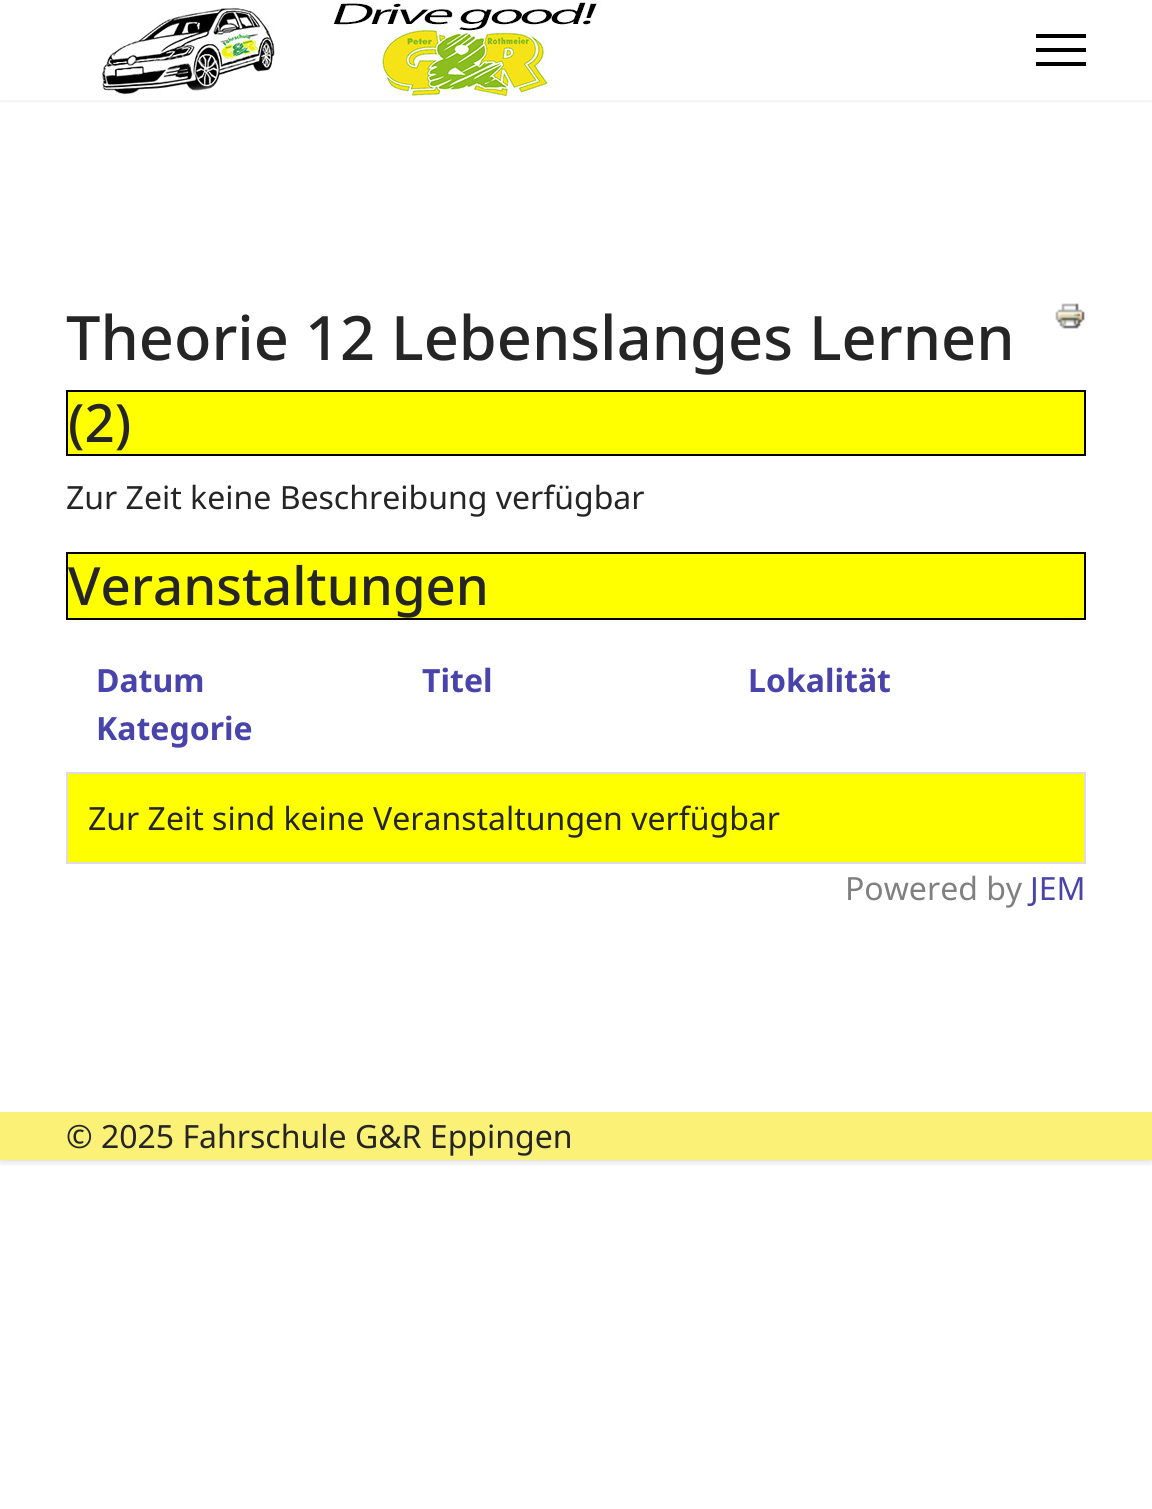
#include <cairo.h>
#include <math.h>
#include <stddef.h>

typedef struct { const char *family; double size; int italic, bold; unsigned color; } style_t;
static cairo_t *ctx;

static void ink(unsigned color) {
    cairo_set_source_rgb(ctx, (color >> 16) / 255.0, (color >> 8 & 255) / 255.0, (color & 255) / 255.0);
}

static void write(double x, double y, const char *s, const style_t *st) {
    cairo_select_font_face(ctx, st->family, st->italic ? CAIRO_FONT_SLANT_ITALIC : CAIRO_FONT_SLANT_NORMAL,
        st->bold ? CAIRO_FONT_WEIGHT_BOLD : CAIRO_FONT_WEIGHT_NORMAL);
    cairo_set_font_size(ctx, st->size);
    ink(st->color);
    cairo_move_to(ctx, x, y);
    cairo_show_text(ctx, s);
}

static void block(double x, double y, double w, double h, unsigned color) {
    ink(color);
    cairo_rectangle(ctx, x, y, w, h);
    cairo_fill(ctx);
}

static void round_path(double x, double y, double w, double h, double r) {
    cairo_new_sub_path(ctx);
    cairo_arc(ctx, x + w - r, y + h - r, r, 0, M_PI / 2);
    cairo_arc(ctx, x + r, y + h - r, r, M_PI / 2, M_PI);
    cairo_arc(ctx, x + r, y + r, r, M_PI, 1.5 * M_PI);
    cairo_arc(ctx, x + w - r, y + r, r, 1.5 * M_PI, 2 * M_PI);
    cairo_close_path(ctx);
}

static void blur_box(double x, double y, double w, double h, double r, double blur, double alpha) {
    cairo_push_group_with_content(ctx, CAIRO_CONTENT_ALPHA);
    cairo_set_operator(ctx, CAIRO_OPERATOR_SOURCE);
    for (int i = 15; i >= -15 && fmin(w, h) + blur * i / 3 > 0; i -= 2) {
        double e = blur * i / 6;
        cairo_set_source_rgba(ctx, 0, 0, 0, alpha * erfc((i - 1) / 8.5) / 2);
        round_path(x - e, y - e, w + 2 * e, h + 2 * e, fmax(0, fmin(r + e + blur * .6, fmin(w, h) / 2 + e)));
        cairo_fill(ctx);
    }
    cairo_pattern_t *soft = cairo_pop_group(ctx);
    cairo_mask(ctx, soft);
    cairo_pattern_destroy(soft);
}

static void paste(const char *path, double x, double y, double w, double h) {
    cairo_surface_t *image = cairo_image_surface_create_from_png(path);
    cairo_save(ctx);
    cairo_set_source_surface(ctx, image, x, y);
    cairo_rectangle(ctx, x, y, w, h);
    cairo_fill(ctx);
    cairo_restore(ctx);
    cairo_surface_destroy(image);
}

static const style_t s1 = {"Noto Sans Medium", 61.25, 0, 0, 0x252525};
static const style_t s2 = {"Noto Sans Medium", 52.75, 0, 0, 0x252525};
static const style_t s3 = {"Noto Sans", 32, 0, 0, 0x252525};
static const style_t s4 = {"Noto Sans", 32, 0, 1, 0x4943ac};
static const style_t s5 = {"FontAwesome", 32, 0, 1, 0x4943ac};
static const style_t s6 = {"Noto Sans", 32, 0, 0, 0x808080};
static const style_t s7 = {"Noto Sans", 32, 0, 0, 0x4943ac};

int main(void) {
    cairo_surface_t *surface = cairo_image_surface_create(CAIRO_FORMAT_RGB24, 1152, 1509);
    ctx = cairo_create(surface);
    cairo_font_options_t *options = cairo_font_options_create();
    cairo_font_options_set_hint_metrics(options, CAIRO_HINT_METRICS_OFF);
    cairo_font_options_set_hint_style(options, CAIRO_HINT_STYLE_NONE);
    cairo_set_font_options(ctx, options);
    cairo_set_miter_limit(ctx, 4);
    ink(0xffffff);
    cairo_paint(ctx);
    cairo_save(ctx);
    cairo_rectangle(ctx, 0, 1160, 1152, 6);
    cairo_clip(ctx);
    ink(0x000000);
    blur_box(0, 0, 1152, 1160, 0, 5, 0.2);
    cairo_restore(ctx);
    cairo_save(ctx);
    cairo_rectangle(ctx, 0, 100, 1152, 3);
    cairo_clip(ctx);
    ink(0x000000);
    blur_box(0, 0, 1152, 100, 0, 4, 0.1);
    cairo_restore(ctx);
    paste("pic1.png", 99, 0, 502, 96);
    block(1036, 34, 50, 4, 0x000000);
    block(1036, 48, 50, 4, 0x000000);
    block(1036, 62, 50, 4, 0x000000);
    write(66, 360, "Theorie 12 Lebenslanges Lernen", &s1);
    paste("pic2.png", 1055, 303, 30, 26);
    ink(0xffff00);
    cairo_rectangle(ctx, 67, 391, 1018, 64);
    cairo_fill_preserve(ctx);
    ink(0x000000);
    cairo_stroke(ctx);
    write(68, 442, "(2)", &s2);
    write(66, 509, "Zur Zeit keine Beschreibung verfügbar", &s3);
    ink(0xffff00);
    cairo_rectangle(ctx, 67, 553, 1018, 66);
    cairo_fill_preserve(ctx);
    ink(0x000000);
    cairo_stroke(ctx);
    write(68, 605, "Veranstaltungen", &s2);
    write(96, 692, "Datum", &s4);
    write(213, 692, "", &s5);
    write(422, 692, "Titel", &s4);
    write(748, 692, "Lokalität", &s4);
    write(96, 740, "Kategorie", &s4);
    ink(0xffff00);
    cairo_rectangle(ctx, 67, 773, 1018, 90);
    cairo_fill_preserve(ctx);
    ink(0xdddddd);
    cairo_stroke(ctx);
    write(88, 830, "Zur Zeit sind keine Veranstaltungen verfügbar", &s3);
    write(845, 900, "Powered by", &s6);
    write(1030, 900, "JEM", &s7);
    block(0, 1112, 1152, 48, 0xfaf176);
    write(66, 1148, "© 2025 Fahrschule G&R Eppingen", &s3);
    cairo_surface_write_to_png(surface, "screenshot.png");
    cairo_font_options_destroy(options);
    cairo_destroy(ctx);
    cairo_surface_destroy(surface);
    return 0;
}
